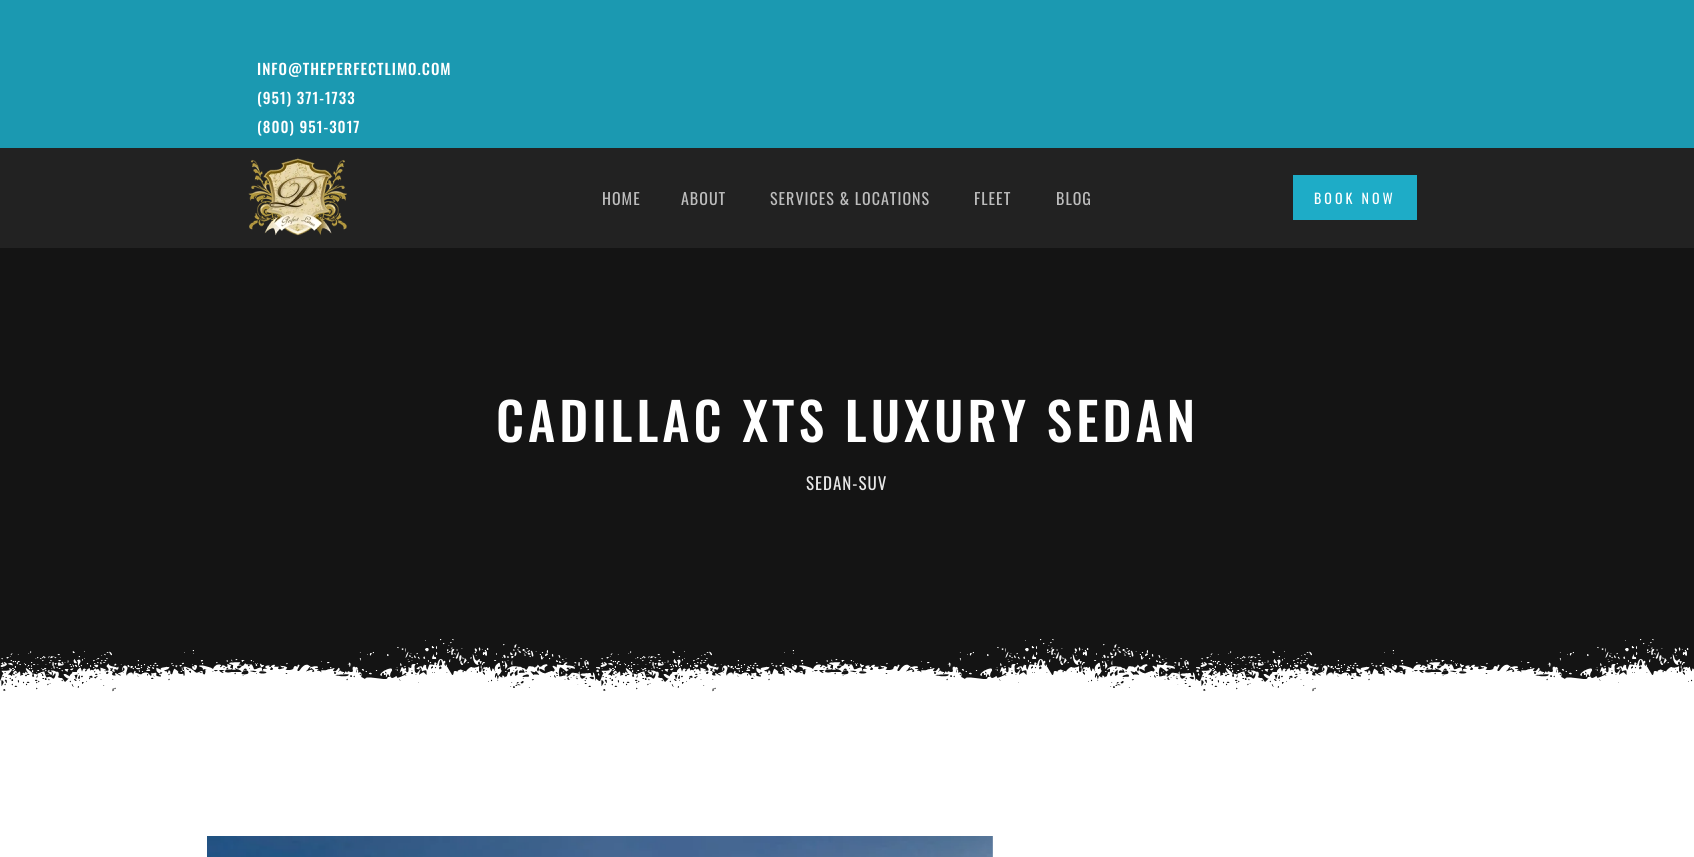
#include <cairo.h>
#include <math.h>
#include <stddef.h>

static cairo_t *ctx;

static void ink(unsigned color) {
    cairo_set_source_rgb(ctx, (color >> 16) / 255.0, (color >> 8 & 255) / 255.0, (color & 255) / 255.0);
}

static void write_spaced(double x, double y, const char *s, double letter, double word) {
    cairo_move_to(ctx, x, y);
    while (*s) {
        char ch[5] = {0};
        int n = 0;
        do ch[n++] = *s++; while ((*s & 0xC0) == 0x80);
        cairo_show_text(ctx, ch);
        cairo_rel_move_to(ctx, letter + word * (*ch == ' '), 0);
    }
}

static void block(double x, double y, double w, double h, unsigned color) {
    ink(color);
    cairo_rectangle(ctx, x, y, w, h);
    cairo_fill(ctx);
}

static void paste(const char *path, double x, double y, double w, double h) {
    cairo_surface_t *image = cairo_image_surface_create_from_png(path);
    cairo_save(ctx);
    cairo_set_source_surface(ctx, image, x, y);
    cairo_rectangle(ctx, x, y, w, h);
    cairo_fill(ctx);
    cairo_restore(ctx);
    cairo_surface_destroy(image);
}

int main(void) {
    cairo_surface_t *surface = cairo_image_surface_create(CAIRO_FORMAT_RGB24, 1694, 857);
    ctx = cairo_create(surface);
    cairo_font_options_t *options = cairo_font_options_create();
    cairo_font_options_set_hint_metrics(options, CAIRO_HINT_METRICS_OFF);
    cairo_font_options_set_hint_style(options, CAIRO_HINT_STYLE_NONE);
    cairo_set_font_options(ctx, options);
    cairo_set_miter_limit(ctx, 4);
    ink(0xffffff);
    cairo_paint(ctx);
    block(0, 0, 1694, 148, 0x1b99b1);
    cairo_select_font_face(ctx, "Oswald Medium", CAIRO_FONT_SLANT_NORMAL, CAIRO_FONT_WEIGHT_NORMAL);
    cairo_set_font_size(ctx, 15);
    ink(0xffffff);
    write_spaced(257, 75, "INFO@THEPERFECTLIMO.COM", 1, 0);
    write_spaced(257, 104, "(951) 371-1733", 1, 0);
    write_spaced(257, 133, "(800) 951-3017", 1, 0);
    block(0, 148, 1694, 100, 0x222222);
    paste("pic1.png", 248, 157, 99, 79);
    cairo_select_font_face(ctx, "Oswald", CAIRO_FONT_SLANT_NORMAL, CAIRO_FONT_WEIGHT_NORMAL);
    cairo_set_font_size(ctx, 16);
    ink(0xbdbdbd);
    write_spaced(602, 205, "HOME", 1, 0);
    write_spaced(681, 205, "ABOUT", 1, 0);
    write_spaced(770, 205, "SERVICES & LOCATIONS", 1, 0);
    write_spaced(974, 205, "FLEET", 1, 0);
    write_spaced(1056, 205, "BLOG", 1, 0);
    block(1293, 175, 124, 45, 0x1eacc7);
    cairo_set_font_size(ctx, 14);
    ink(0xffffff);
    write_spaced(1314, 204, "BOOK NOW", 3, 0);
    block(0, 248, 1694, 444, 0x141414);
    cairo_select_font_face(ctx, "Oswald Medium", CAIRO_FONT_SLANT_NORMAL, CAIRO_FONT_WEIGHT_NORMAL);
    cairo_set_font_size(ctx, 52);
    ink(0xffffff);
    write_spaced(496, 442, "CADILLAC XTS LUXURY SEDAN", 4, 0);
    cairo_select_font_face(ctx, "Oswald", CAIRO_FONT_SLANT_NORMAL, CAIRO_FONT_WEIGHT_NORMAL);
    cairo_set_font_size(ctx, 17);
    ink(0xe8e8e8);
    write_spaced(806, 490, "SEDAN-SUV", 1, 0);
    paste("pic2.png", 0, 639, 1694, 57);
    paste("pic3.png", 207, 836, 786, 21);
    cairo_surface_write_to_png(surface, "screenshot.png");
    cairo_font_options_destroy(options);
    cairo_destroy(ctx);
    cairo_surface_destroy(surface);
    return 0;
}
